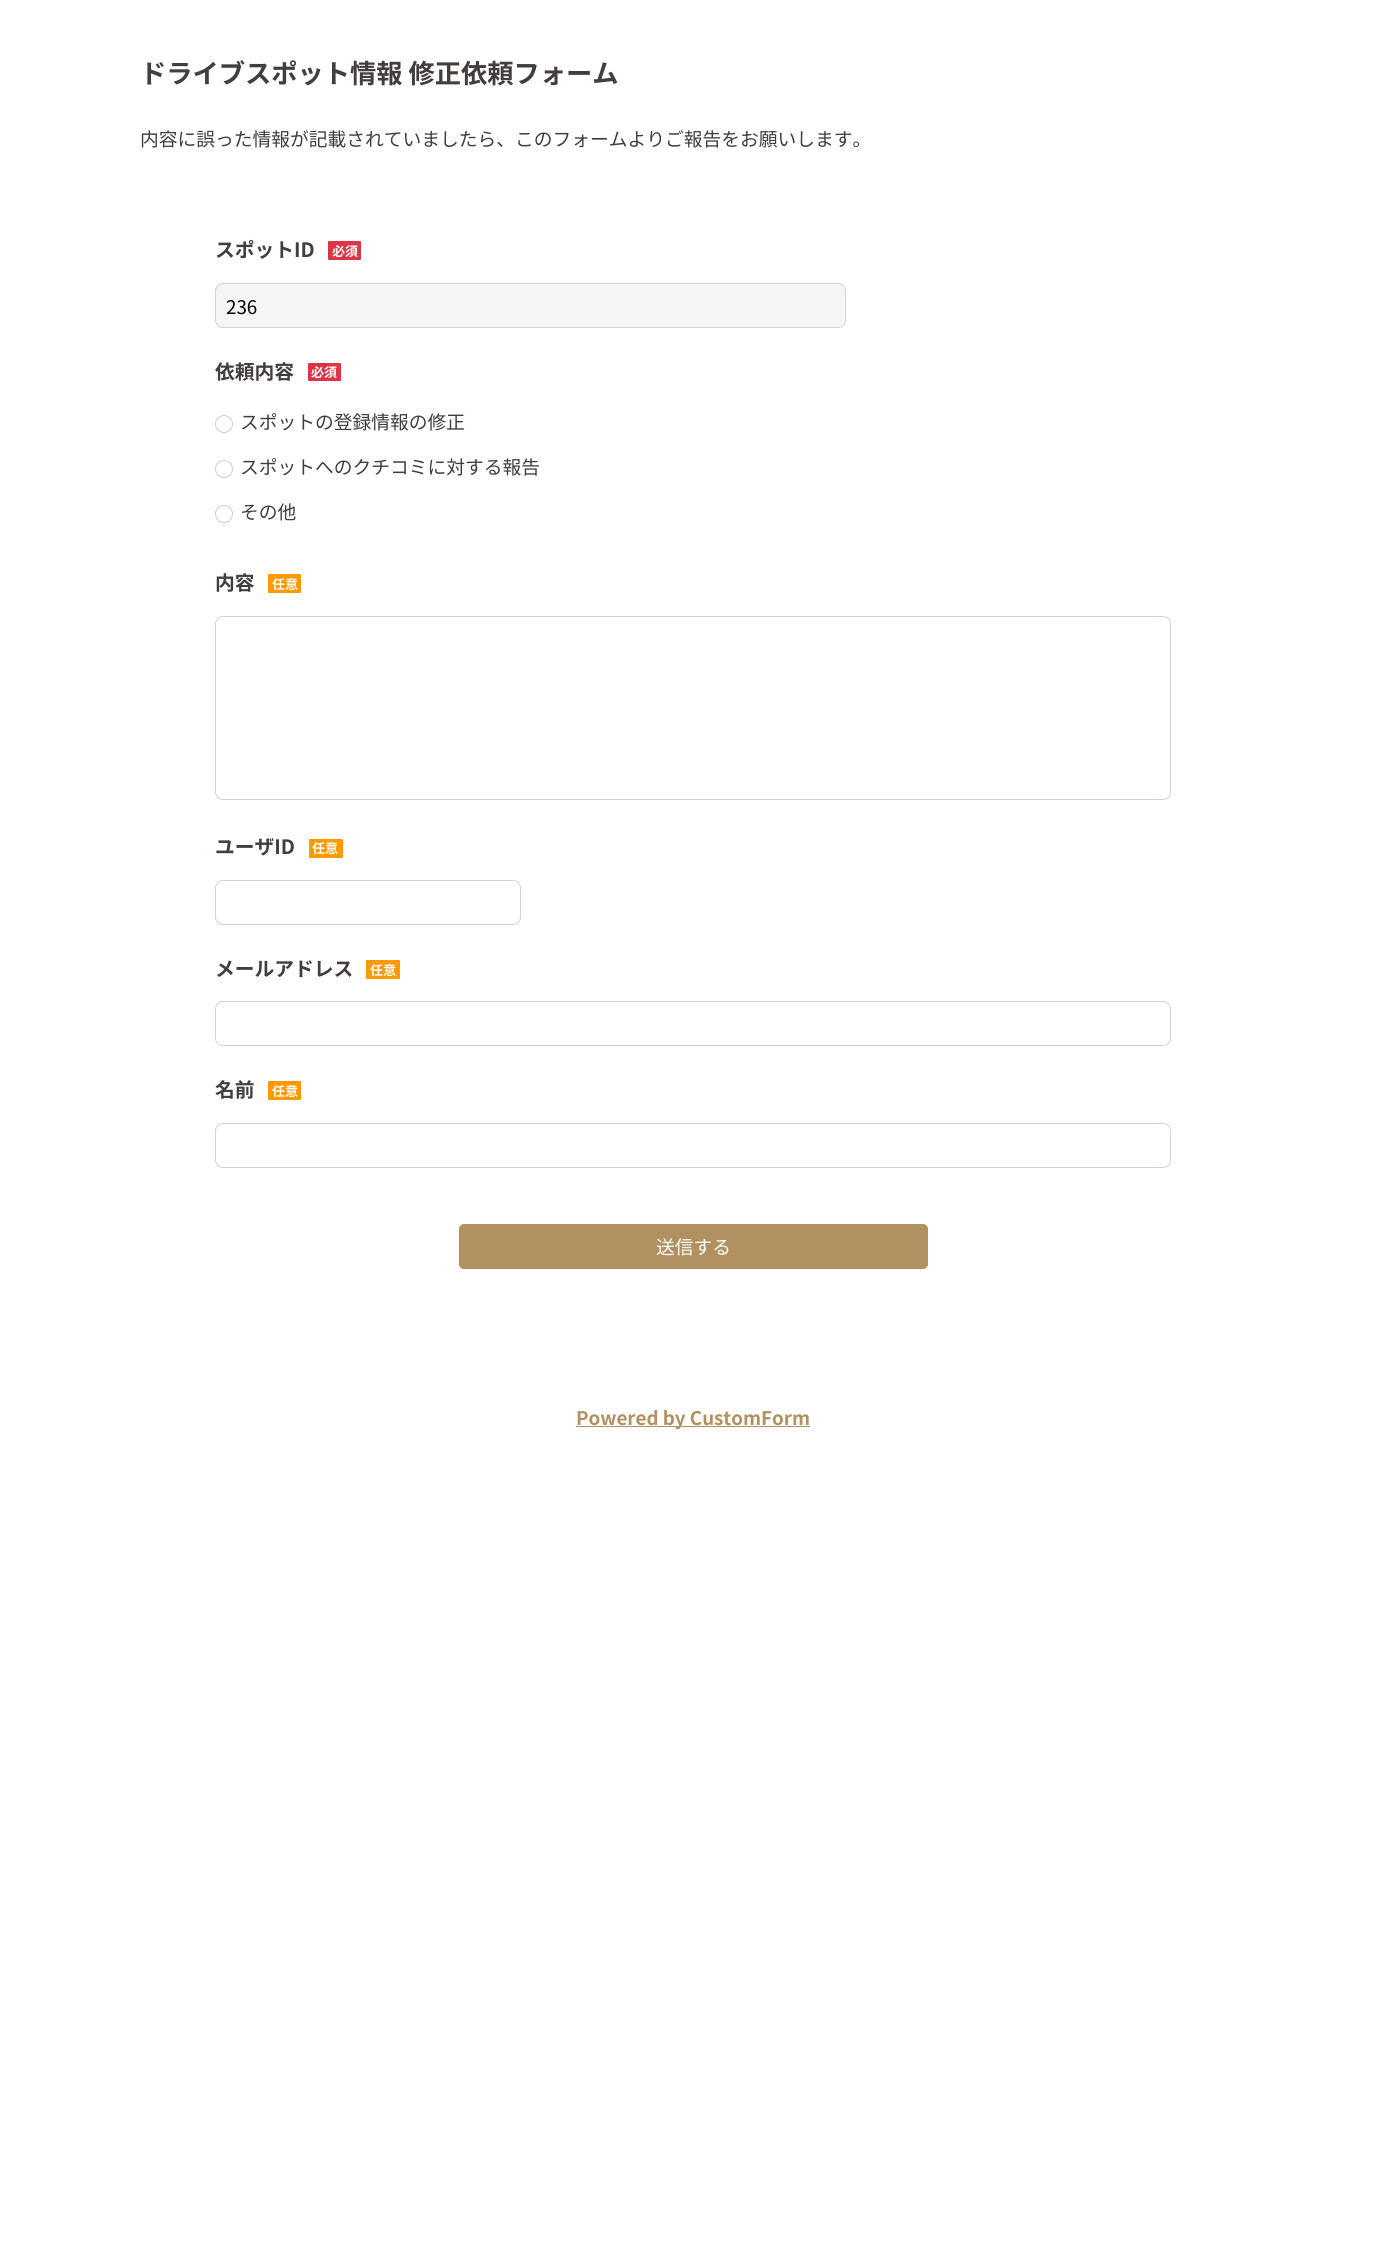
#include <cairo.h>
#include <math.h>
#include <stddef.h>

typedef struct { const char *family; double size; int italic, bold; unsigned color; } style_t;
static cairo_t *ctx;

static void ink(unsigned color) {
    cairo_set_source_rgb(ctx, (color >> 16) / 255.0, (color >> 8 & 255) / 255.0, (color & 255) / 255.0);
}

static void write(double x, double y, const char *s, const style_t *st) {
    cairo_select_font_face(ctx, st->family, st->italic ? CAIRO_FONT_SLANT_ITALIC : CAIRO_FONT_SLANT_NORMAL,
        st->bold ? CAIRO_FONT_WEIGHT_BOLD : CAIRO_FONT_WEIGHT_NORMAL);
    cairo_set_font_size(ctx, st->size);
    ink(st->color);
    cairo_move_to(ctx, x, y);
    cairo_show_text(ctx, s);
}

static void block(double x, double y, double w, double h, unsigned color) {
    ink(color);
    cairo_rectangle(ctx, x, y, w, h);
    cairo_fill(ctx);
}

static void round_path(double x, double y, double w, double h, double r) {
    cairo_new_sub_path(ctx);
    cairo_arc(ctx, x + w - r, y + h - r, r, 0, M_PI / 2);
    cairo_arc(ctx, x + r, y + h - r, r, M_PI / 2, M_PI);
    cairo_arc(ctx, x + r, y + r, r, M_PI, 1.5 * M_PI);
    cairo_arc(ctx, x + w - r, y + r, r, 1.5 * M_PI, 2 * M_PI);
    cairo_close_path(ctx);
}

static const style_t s1 = {"Noto Sans JP", 26.25, 0, 1, 0x433d3c};
static const style_t s2 = {"Noto Sans JP", 18.75, 0, 0, 0x433d3c};
static const style_t s3 = {"Noto Sans JP", 19.75, 0, 1, 0x433d3c};
static const style_t s4 = {"Noto Sans JP", 13, 0, 1, 0xffffff};
static const style_t s5 = {"Noto Sans JP", 18.75, 0, 0, 0x000000};
static const style_t s6 = {"Noto Sans JP", 18.75, 0, 0, 0xffffff};
static const style_t s7 = {"Noto Sans JP", 18.75, 0, 1, 0xb19161};

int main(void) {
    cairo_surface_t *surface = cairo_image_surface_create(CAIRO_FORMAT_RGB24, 1386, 2243);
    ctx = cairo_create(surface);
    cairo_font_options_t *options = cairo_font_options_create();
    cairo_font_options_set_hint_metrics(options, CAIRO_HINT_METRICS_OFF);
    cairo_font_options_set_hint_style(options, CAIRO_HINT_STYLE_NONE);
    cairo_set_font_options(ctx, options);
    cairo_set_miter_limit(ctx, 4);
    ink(0xffffff);
    cairo_paint(ctx);
    write(140, 83, "ドライブスポット情報 修正依頼フォーム", &s1);
    write(140, 146, "内容に誤った情報が記載されていましたら、このフォームよりご報告をお願いします。", &s2);
    write(215, 257, "スポットID", &s3);
    ink(0xdc3545);
    round_path(328, 241, 33, 19, 1);
    cairo_fill(ctx);
    write(332, 256, "必須", &s4);
    ink(0xf5f5f5);
    round_path(215.5, 283.5, 630, 44, 7.5);
    cairo_fill_preserve(ctx);
    ink(0xced4da);
    cairo_set_line_width(ctx, 1);
    cairo_stroke(ctx);
    write(226, 314, "236", &s5);
    write(215, 379, "依頼内容", &s3);
    ink(0xdc3545);
    round_path(308, 363, 33, 18, 1);
    cairo_fill(ctx);
    write(311, 377, "必須", &s4);
    cairo_new_path(ctx);
    cairo_arc(ctx, 224, 424, 8.5, 0, 2 * M_PI);
    ink(0xcccccc);
    cairo_stroke(ctx);
    write(240, 429, "スポットの登録情報の修正", &s2);
    cairo_new_path(ctx);
    cairo_arc(ctx, 224, 469, 8.5, 0, 2 * M_PI);
    ink(0xcccccc);
    cairo_stroke(ctx);
    write(240, 474, "スポットへのクチコミに対する報告", &s2);
    cairo_new_path(ctx);
    cairo_arc(ctx, 224, 514, 8.5, 0, 2 * M_PI);
    ink(0xcccccc);
    cairo_stroke(ctx);
    write(240, 519, "その他", &s2);
    write(215, 590, "内容", &s3);
    ink(0xff9900);
    round_path(268, 574, 33, 19, 1);
    cairo_fill(ctx);
    write(272, 589, "任意", &s4);
    round_path(215.5, 616.5, 955, 183, 7.5);
    ink(0xced4da);
    cairo_stroke(ctx);
    write(215, 854, "ユーザID", &s3);
    ink(0xff9900);
    round_path(309, 839, 34, 19, 1);
    cairo_fill(ctx);
    write(312, 853, "任意", &s4);
    round_path(215.5, 880.5, 305, 44, 7.5);
    ink(0xced4da);
    cairo_stroke(ctx);
    write(215, 976, "メールアドレス", &s3);
    ink(0xff9900);
    round_path(366, 960, 34, 19, 1);
    cairo_fill(ctx);
    write(370, 975, "任意", &s4);
    round_path(215.5, 1001.5, 955, 44, 7.5);
    ink(0xced4da);
    cairo_stroke(ctx);
    write(215, 1097, "名前", &s3);
    ink(0xff9900);
    round_path(268, 1081, 33, 19, 1);
    cairo_fill(ctx);
    write(272, 1096, "任意", &s4);
    round_path(215.5, 1123.5, 955, 44, 7.5);
    ink(0xced4da);
    cairo_stroke(ctx);
    ink(0xb19161);
    round_path(459.5, 1224.5, 468, 44, 4.5);
    cairo_fill_preserve(ctx);
    cairo_stroke(ctx);
    write(656, 1254, "送信する", &s6);
    block(576, 1426, 234, 1, 0xb19161);
    write(576, 1425, "Powered by CustomForm", &s7);
    cairo_surface_write_to_png(surface, "screenshot.png");
    cairo_font_options_destroy(options);
    cairo_destroy(ctx);
    cairo_surface_destroy(surface);
    return 0;
}
